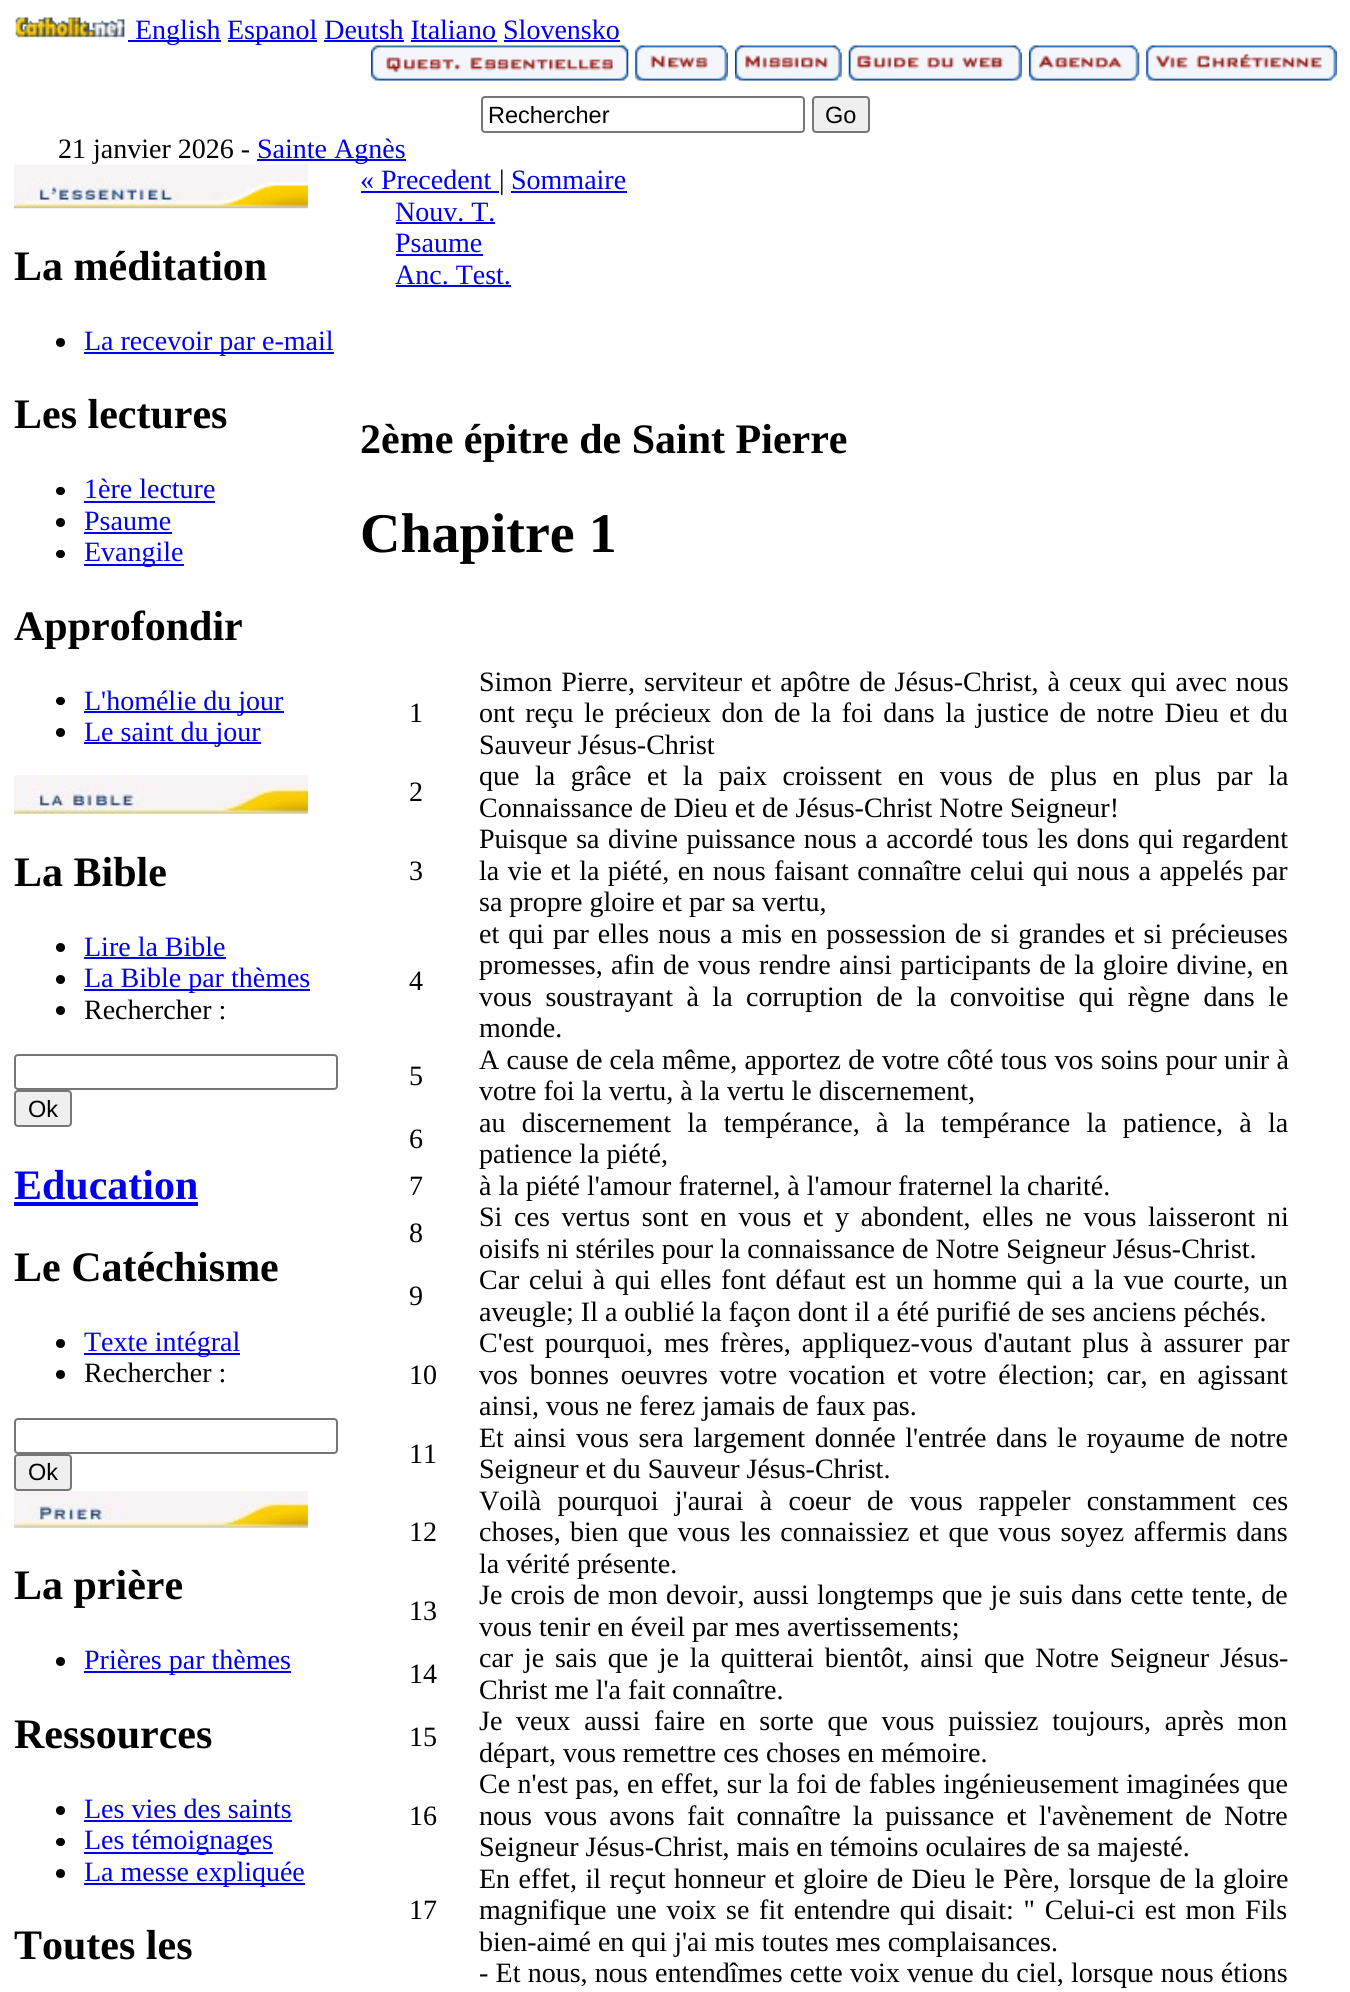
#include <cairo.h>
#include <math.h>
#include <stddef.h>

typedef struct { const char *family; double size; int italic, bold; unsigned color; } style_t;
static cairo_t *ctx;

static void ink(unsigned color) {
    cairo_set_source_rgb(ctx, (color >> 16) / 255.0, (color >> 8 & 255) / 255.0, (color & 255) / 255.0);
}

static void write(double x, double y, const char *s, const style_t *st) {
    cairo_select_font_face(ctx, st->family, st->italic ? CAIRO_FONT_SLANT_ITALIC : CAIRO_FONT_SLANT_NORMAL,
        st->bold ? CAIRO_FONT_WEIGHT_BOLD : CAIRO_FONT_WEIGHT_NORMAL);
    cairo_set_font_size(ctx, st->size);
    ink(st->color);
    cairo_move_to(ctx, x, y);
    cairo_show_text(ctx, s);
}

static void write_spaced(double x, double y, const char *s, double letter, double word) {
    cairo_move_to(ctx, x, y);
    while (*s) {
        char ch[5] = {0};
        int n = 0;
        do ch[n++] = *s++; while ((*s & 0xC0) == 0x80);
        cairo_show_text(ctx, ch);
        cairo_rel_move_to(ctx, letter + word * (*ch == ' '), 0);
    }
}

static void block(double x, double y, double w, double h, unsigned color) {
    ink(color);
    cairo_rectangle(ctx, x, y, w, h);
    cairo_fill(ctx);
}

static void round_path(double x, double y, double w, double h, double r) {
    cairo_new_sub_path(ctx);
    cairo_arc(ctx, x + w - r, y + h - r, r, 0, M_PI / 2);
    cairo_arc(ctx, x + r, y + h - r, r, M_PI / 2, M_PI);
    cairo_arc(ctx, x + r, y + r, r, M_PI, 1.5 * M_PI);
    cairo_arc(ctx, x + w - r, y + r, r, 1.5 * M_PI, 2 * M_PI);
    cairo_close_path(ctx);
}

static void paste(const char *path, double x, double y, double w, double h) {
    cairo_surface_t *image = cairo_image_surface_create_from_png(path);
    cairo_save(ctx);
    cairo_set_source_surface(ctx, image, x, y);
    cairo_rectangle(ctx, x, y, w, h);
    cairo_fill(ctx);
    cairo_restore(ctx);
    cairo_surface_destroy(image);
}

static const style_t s1 = {"Liberation Serif", 28, 0, 0, 0x0000ee};
static const style_t s2 = {"Liberation Sans", 23.5, 0, 0, 0x000000};
static const style_t s3 = {"Liberation Serif", 28, 0, 0, 0x000000};
static const style_t s4 = {"Liberation Serif", 42, 0, 1, 0x000000};
static const style_t s5 = {"Liberation Serif", 42, 0, 1, 0x0000ee};
static const style_t s6 = {"Liberation Serif", 56, 0, 1, 0x000000};

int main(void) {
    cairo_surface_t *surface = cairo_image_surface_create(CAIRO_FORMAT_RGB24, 1350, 1992);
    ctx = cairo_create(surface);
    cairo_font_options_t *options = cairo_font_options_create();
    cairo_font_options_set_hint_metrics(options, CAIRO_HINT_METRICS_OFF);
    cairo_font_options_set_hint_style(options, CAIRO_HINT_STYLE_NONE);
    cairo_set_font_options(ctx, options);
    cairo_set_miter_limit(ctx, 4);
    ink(0xffffff);
    cairo_paint(ctx);
    paste("pic1.png", 15, 17, 110, 21);
    block(128, 40, 93, 2, 0x0000ee);
    write(135, 39, "English", &s1);
    block(228, 40, 89, 2, 0x0000ee);
    write(227, 39, "Espanol Deutsh Italiano Slovensko", &s1);
    block(324, 40, 80, 2, 0x0000ee);
    block(411, 40, 86, 2, 0x0000ee);
    block(504, 40, 116, 2, 0x0000ee);
    paste("pic2.png", 371, 45, 258, 36);
    paste("pic3.png", 635, 45, 93, 36);
    paste("pic4.png", 735, 45, 107, 36);
    paste("pic5.png", 848, 45, 174, 36);
    paste("pic6.png", 1029, 45, 111, 36);
    paste("pic7.png", 1146, 45, 191, 36);
    round_path(482, 97, 322, 35, 3);
    ink(0x767676);
    cairo_stroke(ctx);
    write(488, 123, "Rechercher", &s2);
    ink(0xefefef);
    round_path(813, 97, 56, 35, 3);
    cairo_fill_preserve(ctx);
    ink(0x767676);
    cairo_stroke(ctx);
    write(825, 123, "Go", &s2);
    write(58, 158, "21 janvier 2026 -", &s3);
    block(257, 159, 149, 2, 0x0000ee);
    write(257, 158, "Sainte Agnès", &s1);
    paste("pic8.png", 14, 164, 294, 45);
    write(14, 280, "La méditation", &s4);
    cairo_new_path(ctx);
    cairo_arc(ctx, 60.5, 342.5, 4.5, 0, 2 * M_PI);
    cairo_fill(ctx);
    block(84, 352, 250, 2, 0x0000ee);
    write(84, 350, "La recevoir par e-mail", &s1);
    write(14, 428, "Les lectures", &s4);
    round_path(56, 487, 9, 8, 4);
    cairo_fill(ctx);
    write(84, 498, "1ère lecture", &s1);
    block(84, 501, 131, 2, 0x0000ee);
    ink(0x000000);
    cairo_new_path(ctx);
    cairo_arc(ctx, 60.5, 522.5, 4.5, 0, 2 * M_PI);
    cairo_fill(ctx);
    write(84, 530, "Psaume", &s1);
    block(84, 532, 88, 2, 0x0000ee);
    ink(0x000000);
    round_path(56, 550, 9, 8, 4);
    cairo_fill(ctx);
    block(84, 564, 100, 2, 0x0000ee);
    write(84, 561, "Evangile", &s1);
    write(14, 640, "Approfondir", &s4);
    round_path(56, 697, 9, 8, 4);
    cairo_fill(ctx);
    block(84, 711, 200, 2, 0x0000ee);
    write(84, 710, "L'homélie du jour", &s1);
    ink(0x000000);
    cairo_new_path(ctx);
    cairo_arc(ctx, 60.5, 732.5, 4.5, 0, 2 * M_PI);
    cairo_fill(ctx);
    block(84, 742, 177, 2, 0x0000ee);
    write(84, 741, "Le saint du jour", &s1);
    paste("pic9.png", 14, 775, 294, 39);
    write(14, 886, "La Bible", &s4);
    cairo_new_path(ctx);
    cairo_arc(ctx, 60.5, 947.5, 4.5, 0, 2 * M_PI);
    cairo_fill(ctx);
    write(84, 956, "Lire la Bible", &s1);
    block(84, 957, 142, 2, 0x0000ee);
    ink(0x000000);
    cairo_new_path(ctx);
    cairo_arc(ctx, 60.5, 979.5, 4.5, 0, 2 * M_PI);
    cairo_fill(ctx);
    block(84, 989, 226, 2, 0x0000ee);
    write(84, 987, "La Bible par thèmes", &s1);
    ink(0x000000);
    cairo_new_path(ctx);
    cairo_arc(ctx, 60.5, 1010.5, 4.5, 0, 2 * M_PI);
    cairo_fill(ctx);
    write(84, 1019, "Rechercher :", &s3);
    round_path(15, 1055, 322, 34, 3);
    ink(0x767676);
    cairo_stroke(ctx);
    ink(0xefefef);
    round_path(15, 1091, 56, 35, 3);
    cairo_fill_preserve(ctx);
    ink(0x767676);
    cairo_stroke(ctx);
    write(28, 1117, "Ok", &s2);
    write(14, 1199, "Education", &s5);
    block(14, 1202, 184, 4, 0x0000ee);
    write(14, 1281, "Le Catéchisme", &s4);
    cairo_new_path(ctx);
    cairo_arc(ctx, 60.5, 1343.5, 4.5, 0, 2 * M_PI);
    cairo_fill(ctx);
    block(84, 1353, 156, 2, 0x0000ee);
    write(84, 1351, "Texte intégral", &s1);
    ink(0x000000);
    cairo_new_path(ctx);
    cairo_arc(ctx, 60.5, 1374.5, 4.5, 0, 2 * M_PI);
    cairo_fill(ctx);
    write(84, 1382, "Rechercher :", &s3);
    round_path(15, 1419, 322, 34, 3);
    ink(0x767676);
    cairo_stroke(ctx);
    ink(0xefefef);
    round_path(15, 1455, 56, 35, 3);
    cairo_fill_preserve(ctx);
    ink(0x767676);
    cairo_stroke(ctx);
    write(28, 1480, "Ok", &s2);
    paste("pic10.png", 14, 1491, 294, 37);
    write(14, 1599, "La prière", &s4);
    cairo_new_path(ctx);
    cairo_arc(ctx, 60.5, 1661.5, 4.5, 0, 2 * M_PI);
    cairo_fill(ctx);
    block(84, 1671, 207, 2, 0x0000ee);
    write(84, 1669, "Prières par thèmes", &s1);
    write(14, 1748, "Ressources", &s4);
    cairo_new_path(ctx);
    cairo_arc(ctx, 60.5, 1810.5, 4.5, 0, 2 * M_PI);
    cairo_fill(ctx);
    write(84, 1818, "Les vies des saints", &s1);
    block(84, 1820, 208, 2, 0x0000ee);
    ink(0x000000);
    round_path(56, 1838, 9, 8, 4);
    cairo_fill(ctx);
    block(84, 1852, 189, 2, 0x0000ee);
    write(84, 1849, "Les témoignages", &s1);
    ink(0x000000);
    cairo_new_path(ctx);
    cairo_arc(ctx, 60.5, 1873.5, 4.5, 0, 2 * M_PI);
    cairo_fill(ctx);
    block(84, 1883, 221, 2, 0x0000ee);
    write(84, 1881, "La messe expliquée", &s1);
    write(14, 1959, "Toutes les", &s4);
    write(360, 189, "« Precedent", &s1);
    write(499, 189, "|", &s3);
    block(361, 191, 138, 2, 0x0000ee);
    write(511, 189, "Sommaire", &s1);
    block(511, 191, 116, 2, 0x0000ee);
    write(395, 221, "Nouv. T.", &s1);
    block(396, 222, 99, 2, 0x0000ee);
    write(395, 252, "Psaume", &s1);
    block(396, 254, 87, 2, 0x0000ee);
    write(395, 284, "Anc. Test.", &s1);
    block(396, 285, 115, 2, 0x0000ee);
    write(360, 453, "2ème épitre de Saint Pierre", &s4);
    write(360, 552, "Chapitre 1", &s6);
    write(409, 722, "1", &s3);
    write_spaced(479, 691, "Simon Pierre, serviteur et apôtre de Jésus-Christ, à ceux qui avec nous", 0, 2);
    write_spaced(479, 722, "ont reçu le précieux don de la foi dans la justice de notre Dieu et du", 0, 3.5);
    write(479, 754, "Sauveur Jésus-Christ", &s3);
    write(409, 801, "2", &s3);
    write_spaced(479, 785, "que la grâce et la paix croissent en vous de plus en plus par la", 0, 8.6);
    write(479, 817, "Connaissance de Dieu et de Jésus-Christ Notre Seigneur!", &s3);
    write(409, 880, "3", &s3);
    write_spaced(479, 848, "Puisque sa divine puissance nous a accordé tous les dons qui regardent", 0, 1.5);
    write_spaced(479, 880, "la vie et la piété, en nous faisant connaître celui qui nous a appelés par", 0, 1.5);
    write(479, 911, "sa propre gloire et par sa vertu,", &s3);
    write(409, 990, "4", &s3);
    write_spaced(479, 943, "et qui par elles nous a mis en possession de si grandes et si précieuses", 0, 2);
    write_spaced(479, 974, "promesses, afin de vous rendre ainsi participants de la gloire divine, en", 0, 1.4);
    write_spaced(479, 1006, "vous soustrayant à la corruption de la convoitise qui règne dans le", 0, 6.5);
    write(479, 1037, "monde.", &s3);
    write(409, 1085, "5", &s3);
    write_spaced(479, 1069, "A cause de cela même, apportez de votre côté tous vos soins pour unir à", 0, 0.25);
    write(479, 1100, "votre foi la vertu, à la vertu le discernement,", &s3);
    write(409, 1148, "6", &s3);
    write_spaced(479, 1132, "au discernement la tempérance, à la tempérance la patience, à la", 0, 9.25);
    write(479, 1163, "patience la piété,", &s3);
    write(409, 1195, "7", &s3);
    write(479, 1195, "à la piété l'amour fraternel, à l'amour fraternel la charité.", &s3);
    write(409, 1242, "8", &s3);
    write_spaced(479, 1226, "Si ces vertus sont en vous et y abondent, elles ne vous laisseront ni", 0, 4.75);
    write(479, 1258, "oisifs ni stériles pour la connaissance de Notre Seigneur Jésus-Christ.", &s3);
    write(409, 1305, "9", &s3);
    write_spaced(479, 1289, "Car celui à qui elles font défaut est un homme qui a la vue courte, un", 0, 2.5);
    write(479, 1321, "aveugle; Il a oublié la façon dont il a été purifié de ses anciens péchés.", &s3);
    write(409, 1384, "10", &s3);
    write_spaced(479, 1352, "C'est pourquoi, mes frères, appliquez-vous d'autant plus à assurer par", 0, 4);
    write_spaced(479, 1384, "vos bonnes oeuvres votre vocation et votre élection; car, en agissant", 0, 4.75);
    write(479, 1415, "ainsi, vous ne ferez jamais de faux pas.", &s3);
    write(409, 1463, "11", &s3);
    write_spaced(479, 1447, "Et ainsi vous sera largement donnée l'entrée dans le royaume de notre", 0, 2.6);
    write(479, 1478, "Seigneur et du Sauveur Jésus-Christ.", &s3);
    write(409, 1541, "12", &s3);
    write_spaced(479, 1510, "Voilà pourquoi j'aurai à coeur de vous rappeler constamment ces", 0, 9.25);
    write_spaced(479, 1541, "choses, bien que vous les connaissiez et que vous soyez affermis dans", 0, 2.4);
    write(479, 1573, "la vérité présente.", &s3);
    write(409, 1620, "13", &s3);
    write_spaced(479, 1604, "Je crois de mon devoir, aussi longtemps que je suis dans cette tente, de", 0, 1.25);
    write(479, 1636, "vous tenir en éveil par mes avertissements;", &s3);
    write(409, 1683, "14", &s3);
    write_spaced(479, 1667, "car je sais que je la quitterai bientôt, ainsi que Notre Seigneur Jésus-", 0, 3.75);
    write(479, 1699, "Christ me l'a fait connaître.", &s3);
    write(409, 1746, "15", &s3);
    write_spaced(479, 1730, "Je veux aussi faire en sorte que vous puissiez toujours, après mon", 0, 6.75);
    write(479, 1762, "départ, vous remettre ces choses en mémoire.", &s3);
    write(409, 1825, "16", &s3);
    write_spaced(479, 1793, "Ce n'est pas, en effet, sur la foi de fables ingénieusement imaginées que", 0, 0.5);
    write_spaced(479, 1825, "nous vous avons fait connaître la puissance et l'avènement de Notre", 0, 5.25);
    write(479, 1856, "Seigneur Jésus-Christ, mais en témoins oculaires de sa majesté.", &s3);
    write(409, 1919, "17", &s3);
    write_spaced(479, 1888, "En effet, il reçut honneur et gloire de Dieu le Père, lorsque de la gloire", 0, 1.5);
    write_spaced(479, 1919, "magnifique une voix se fit entendre qui disait: \" Celui-ci est mon Fils", 0, 2.75);
    write(479, 1951, "bien-aimé en qui j'ai mis toutes mes complaisances.", &s3);
    write_spaced(479, 1982, "- Et nous, nous entendîmes cette voix venue du ciel, lorsque nous étions", 0, 0.25);
    cairo_surface_write_to_png(surface, "screenshot.png");
    cairo_font_options_destroy(options);
    cairo_destroy(ctx);
    cairo_surface_destroy(surface);
    return 0;
}
